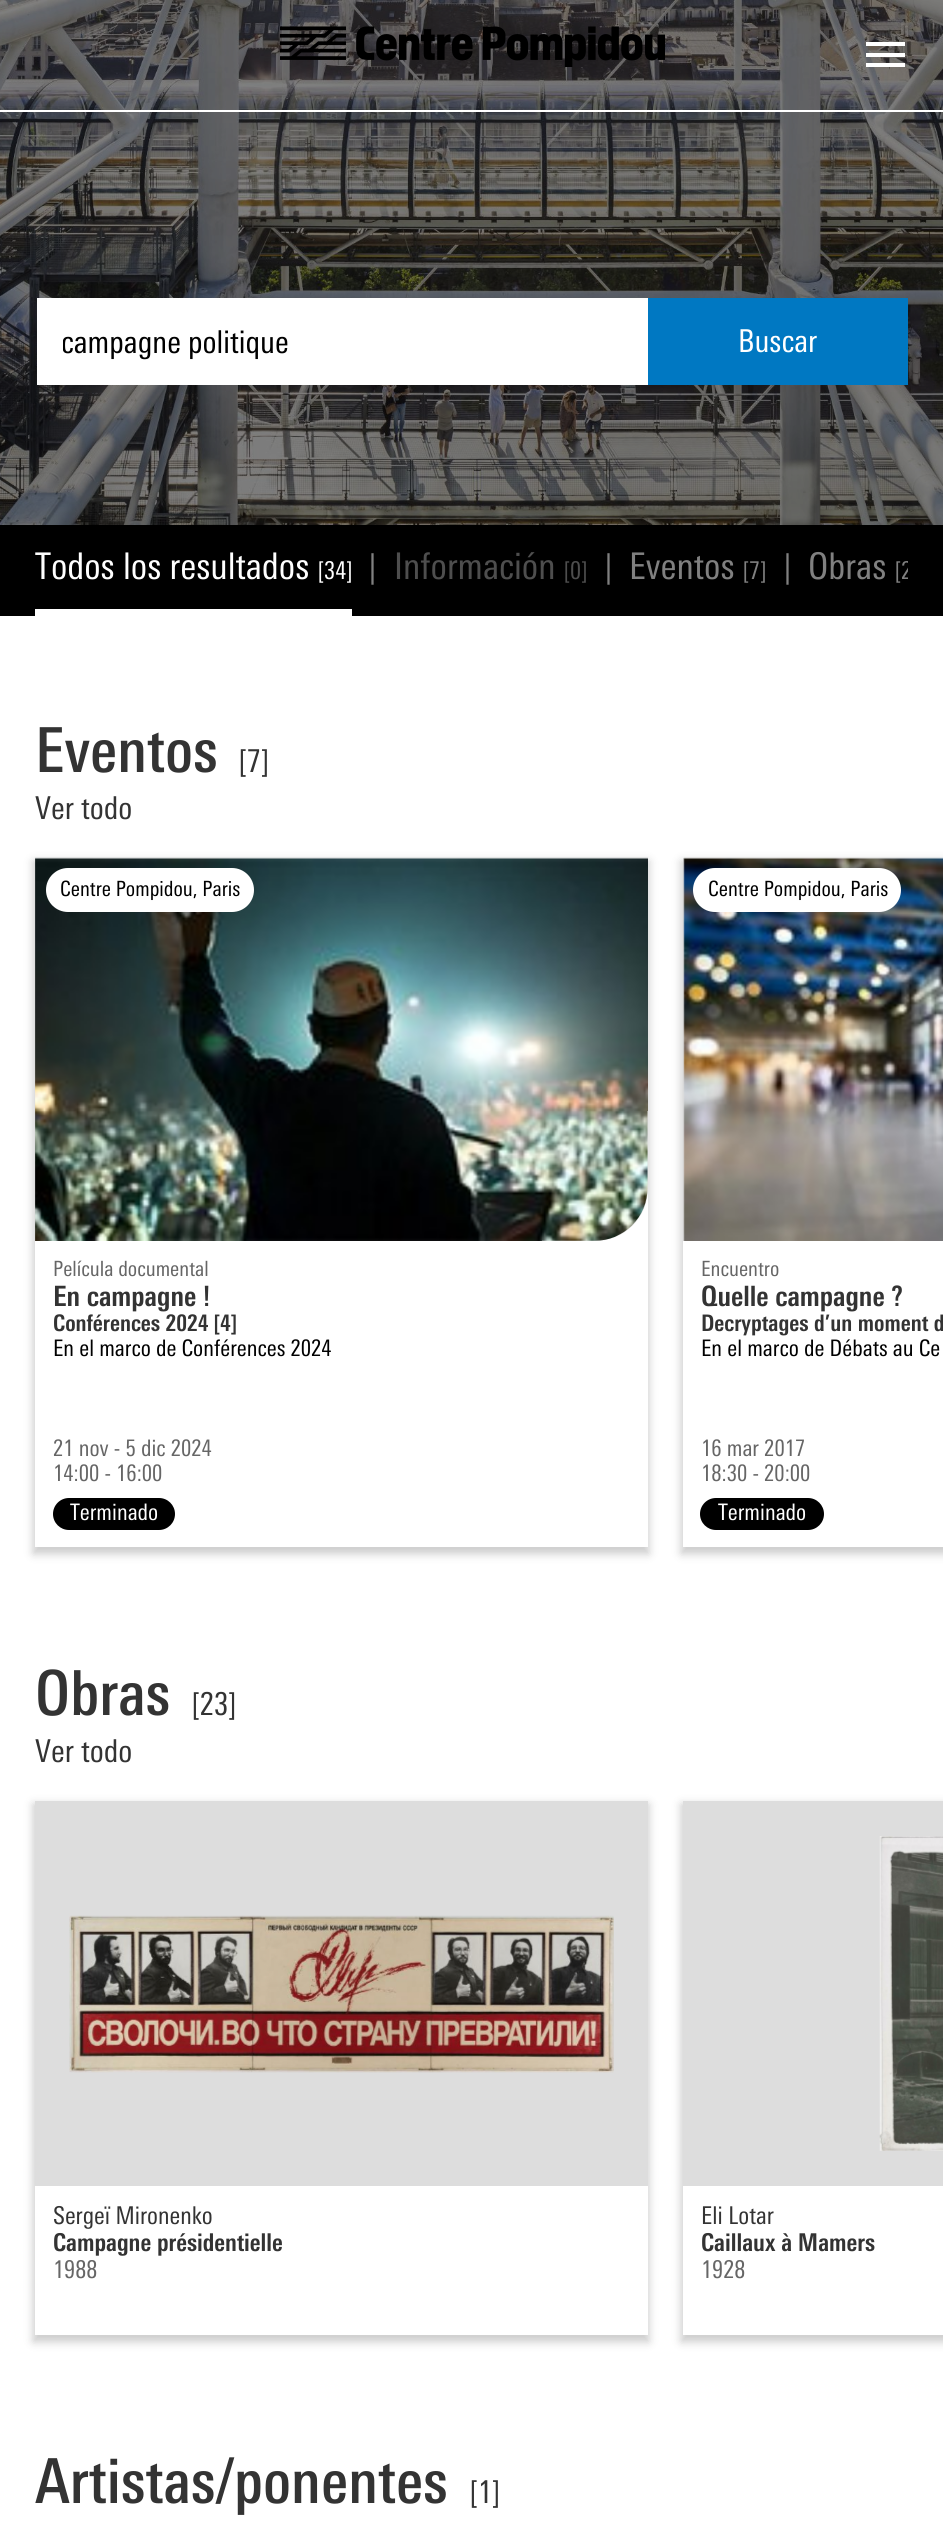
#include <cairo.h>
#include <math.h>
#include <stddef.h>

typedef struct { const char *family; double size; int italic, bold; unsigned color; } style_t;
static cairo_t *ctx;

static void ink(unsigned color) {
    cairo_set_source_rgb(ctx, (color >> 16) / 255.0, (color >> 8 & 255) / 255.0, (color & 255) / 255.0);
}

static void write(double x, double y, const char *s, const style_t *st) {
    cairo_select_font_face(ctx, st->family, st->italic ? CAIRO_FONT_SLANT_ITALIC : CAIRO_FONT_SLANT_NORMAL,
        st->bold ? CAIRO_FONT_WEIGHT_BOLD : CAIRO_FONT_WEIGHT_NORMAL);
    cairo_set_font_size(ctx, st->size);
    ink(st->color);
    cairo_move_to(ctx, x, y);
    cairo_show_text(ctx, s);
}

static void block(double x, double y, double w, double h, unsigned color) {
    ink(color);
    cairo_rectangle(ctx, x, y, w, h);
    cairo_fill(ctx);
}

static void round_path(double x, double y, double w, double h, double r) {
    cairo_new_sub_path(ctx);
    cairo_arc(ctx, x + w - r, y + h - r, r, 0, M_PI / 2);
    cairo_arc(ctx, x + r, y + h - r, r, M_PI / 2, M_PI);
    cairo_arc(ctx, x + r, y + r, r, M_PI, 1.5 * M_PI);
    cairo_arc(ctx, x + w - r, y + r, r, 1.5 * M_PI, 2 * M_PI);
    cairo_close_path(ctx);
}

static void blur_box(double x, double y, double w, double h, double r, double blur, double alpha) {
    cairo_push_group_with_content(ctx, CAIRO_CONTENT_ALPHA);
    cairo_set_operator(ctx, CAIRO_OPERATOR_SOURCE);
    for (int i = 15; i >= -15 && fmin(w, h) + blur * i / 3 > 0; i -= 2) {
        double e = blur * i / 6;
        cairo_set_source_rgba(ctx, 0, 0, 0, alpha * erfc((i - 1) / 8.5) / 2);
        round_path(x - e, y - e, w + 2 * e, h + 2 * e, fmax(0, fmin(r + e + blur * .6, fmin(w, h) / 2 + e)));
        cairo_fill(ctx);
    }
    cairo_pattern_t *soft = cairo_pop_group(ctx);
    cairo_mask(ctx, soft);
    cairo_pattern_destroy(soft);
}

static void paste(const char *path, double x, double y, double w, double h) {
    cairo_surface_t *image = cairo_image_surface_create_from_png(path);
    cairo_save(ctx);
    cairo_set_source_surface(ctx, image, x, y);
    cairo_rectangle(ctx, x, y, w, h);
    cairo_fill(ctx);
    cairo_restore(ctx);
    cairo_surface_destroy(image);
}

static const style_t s1 = {"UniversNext", 31.5, 0, 0, 0x000000};
static const style_t s2 = {"UniversNext", 31.5, 0, 0, 0xffffff};
static const style_t s3 = {"UniversNext", 36.75, 0, 0, 0xffffff};
static const style_t s4 = {"UniversNext", 24.5, 0, 0, 0xffffff};
static const style_t s5 = {"UniversNext", 31.5, 0, 0, 0x808080};
static const style_t s6 = {"UniversNext", 36.75, 0, 0, 0x4e4e4e};
static const style_t s7 = {"UniversNext", 24.5, 0, 0, 0x4e4e4e};
static const style_t s8 = {"UniversNext", 36.75, 0, 0, 0x808080};
static const style_t s9 = {"UniversNext", 24.5, 0, 0, 0x808080};
static const style_t s10 = {"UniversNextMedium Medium", 62, 0, 0, 0x333333};
static const style_t s11 = {"UniversNext", 31.5, 0, 0, 0x333333};
static const style_t s12 = {"UniversNext", 21, 0, 0, 0x000000};
static const style_t s13 = {"UniversNext", 21, 0, 0, 0x666666};
static const style_t s14 = {"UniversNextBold", 28, 0, 1, 0x333333};
static const style_t s15 = {"UniversNextBold", 22.75, 0, 1, 0x333333};
static const style_t s16 = {"UniversNext", 22.75, 0, 0, 0x000000};
static const style_t s17 = {"UniversNext", 22.75, 0, 0, 0x666666};
static const style_t s18 = {"UniversNext", 22.75, 0, 0, 0xffffff};
static const style_t s19 = {"UniversNext", 24.5, 0, 0, 0x333333};
static const style_t s20 = {"UniversNextBold", 24.5, 0, 1, 0x333333};
static const style_t s21 = {"UniversNext", 24.5, 0, 0, 0x666666};

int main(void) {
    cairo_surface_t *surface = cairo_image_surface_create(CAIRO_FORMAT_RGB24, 943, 2522);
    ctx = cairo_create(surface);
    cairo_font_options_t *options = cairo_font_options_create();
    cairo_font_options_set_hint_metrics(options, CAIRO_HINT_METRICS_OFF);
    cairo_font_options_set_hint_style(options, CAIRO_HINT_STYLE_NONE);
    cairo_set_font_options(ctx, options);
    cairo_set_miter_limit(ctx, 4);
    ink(0xffffff);
    cairo_paint(ctx);
    paste("pic2.png", 0, 0, 943, 525);
    block(0, 110, 943, 2, 0xffffff);
    paste("pic1.png", 280, 26, 385, 41);
    block(866, 53, 39, 4, 0xffffff);
    block(866, 42, 39, 4, 0xffffff);
    block(866, 63, 39, 4, 0xffffff);
    block(37, 298, 611, 87, 0xffffff);
    cairo_save(ctx);
    cairo_rectangle(ctx, 63, 324, 581, 37);
    cairo_clip(ctx);
    write(61, 353, "campagne politique", &s1);
    cairo_restore(ctx);
    block(648, 298, 260, 87, 0x0078c2);
    write(738, 352, "Buscar", &s2);
    block(0, 525, 943, 91, 0x000000);
    block(35, 609, 317, 7, 0xffffff);
    write(35, 579, "Todos los resultados", &s3);
    write(318, 579, "[34]", &s4);
    write(369, 578, "|", &s5);
    write(394, 579, "Información", &s6);
    write(564, 579, "[0]", &s7);
    write(605, 578, "|", &s5);
    write(629, 579, "Eventos", &s8);
    write(743, 579, "[7]", &s9);
    write(784, 578, "|", &s5);
    write(808, 579, "Obras", &s8);
    cairo_save(ctx);
    cairo_rectangle(ctx, 35, 525, 873, 91);
    cairo_clip(ctx);
    write(895, 579, "[2", &s9);
    cairo_restore(ctx);
    write(35, 772, "Eventos", &s10);
    write(239, 772, "[7]", &s11);
    write(35, 819, "Ver todo", &s11);
    ink(0x000000);
    blur_box(33, 861, 616, 693, 0, 4.5, 0.2);
    block(35, 1188, 613, 359, 0xffffff);
    ink(0xdddddd);
    cairo_new_path(ctx);
    cairo_move_to(ctx, 35, 858);
    cairo_line_to(ctx, 648, 858);
    cairo_line_to(ctx, 648, 1188);
    cairo_curve_to(ctx, 648, 1217.5, 624.5, 1241, 595, 1241);
    cairo_line_to(ctx, 35, 1241);
    cairo_close_path(ctx);
    cairo_fill(ctx);
    paste("pic3.png", 35, 857, 613, 384);
    ink(0xffffff);
    round_path(46, 868, 208, 44, 22);
    cairo_fill(ctx);
    write(60, 896, "Centre Pompidou, Paris", &s12);
    write(53, 1276, "Película documental", &s13);
    write(53, 1306, "En campagne !", &s14);
    write(53, 1331, "Conférences 2024 [4]", &s15);
    write(53, 1356, "En el marco de Conférences 2024", &s16);
    write(53, 1456, "21 nov - 5 dic 2024", &s17);
    write(53, 1481, "14:00 - 16:00", &s17);
    ink(0x000000);
    round_path(53, 1498, 122, 32, 16);
    cairo_fill(ctx);
    write(70, 1520, "Terminado", &s18);
    cairo_save(ctx);
    cairo_set_fill_rule(ctx, CAIRO_FILL_RULE_EVEN_ODD);
    cairo_new_path(ctx);
    cairo_move_to(ctx, 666, 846);
    cairo_line_to(ctx, 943, 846);
    cairo_line_to(ctx, 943, 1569);
    cairo_line_to(ctx, 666, 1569);
    cairo_close_path(ctx);
    cairo_move_to(ctx, 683, 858);
    cairo_line_to(ctx, 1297, 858);
    cairo_line_to(ctx, 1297, 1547);
    cairo_line_to(ctx, 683, 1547);
    cairo_close_path(ctx);
    cairo_clip(ctx);
    ink(0x000000);
    blur_box(681, 861, 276, 693, 0, 4.5, 0.2);
    cairo_restore(ctx);
    block(683, 858, 260, 383, 0xdddddd);
    paste("pic4.png", 683, 857, 260, 384);
    ink(0xffffff);
    round_path(693, 868, 208, 44, 22);
    cairo_fill(ctx);
    write(708, 896, "Centre Pompidou, Paris", &s12);
    write(701, 1276, "Encuentro", &s13);
    write(701, 1306, "Quelle campagne ?", &s14);
    write(701, 1331, "Decryptages d’un moment d", &s15);
    write(701, 1356, "En el marco de Débats au Ce", &s16);
    write(701, 1456, "16 mar 2017", &s17);
    write(701, 1481, "18:30 - 20:00", &s17);
    ink(0x000000);
    round_path(700, 1498, 124, 32, 16);
    cairo_fill(ctx);
    write(718, 1520, "Terminado", &s18);
    write(35, 1715, "Obras", &s10);
    write(192, 1715, "[23]", &s11);
    write(35, 1762, "Ver todo", &s11);
    ink(0x000000);
    blur_box(33, 1804, 616, 538, 0, 4.5, 0.2);
    block(35, 2186, 613, 149, 0xffffff);
    block(35, 1801, 613, 385, 0xdddddd);
    paste("pic5.png", 69, 1915, 545, 158);
    write(53, 2224, "Sergeï Mironenko", &s19);
    write(53, 2251, "Campagne présidentielle", &s20);
    write(53, 2278, "1988", &s21);
    ink(0x000000);
    blur_box(681, 1804, 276, 538, 0, 4.5, 0.2);
    block(683, 2186, 260, 149, 0xffffff);
    block(683, 1801, 260, 385, 0xdddddd);
    paste("pic6.png", 879, 1836, 64, 315);
    write(701, 2224, "Eli Lotar", &s19);
    write(701, 2251, "Caillaux à Mamers", &s20);
    write(701, 2278, "1928", &s21);
    write(35, 2503, "Artistas/ponentes", &s10);
    write(470, 2503, "[1]", &s11);
    cairo_surface_write_to_png(surface, "screenshot.png");
    cairo_font_options_destroy(options);
    cairo_destroy(ctx);
    cairo_surface_destroy(surface);
    return 0;
}
